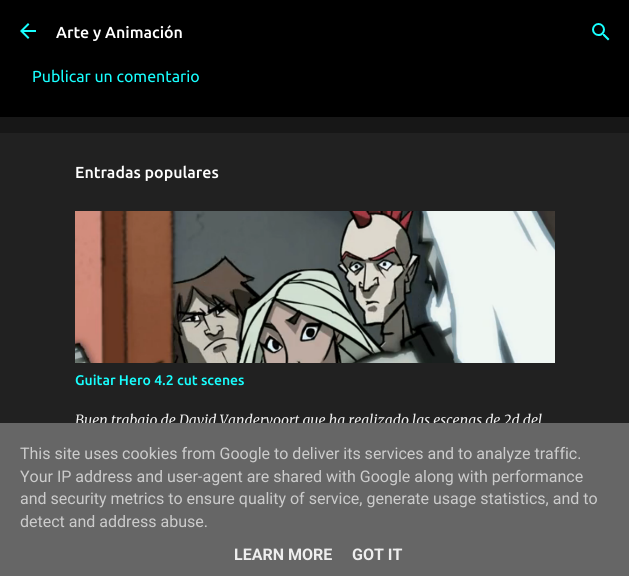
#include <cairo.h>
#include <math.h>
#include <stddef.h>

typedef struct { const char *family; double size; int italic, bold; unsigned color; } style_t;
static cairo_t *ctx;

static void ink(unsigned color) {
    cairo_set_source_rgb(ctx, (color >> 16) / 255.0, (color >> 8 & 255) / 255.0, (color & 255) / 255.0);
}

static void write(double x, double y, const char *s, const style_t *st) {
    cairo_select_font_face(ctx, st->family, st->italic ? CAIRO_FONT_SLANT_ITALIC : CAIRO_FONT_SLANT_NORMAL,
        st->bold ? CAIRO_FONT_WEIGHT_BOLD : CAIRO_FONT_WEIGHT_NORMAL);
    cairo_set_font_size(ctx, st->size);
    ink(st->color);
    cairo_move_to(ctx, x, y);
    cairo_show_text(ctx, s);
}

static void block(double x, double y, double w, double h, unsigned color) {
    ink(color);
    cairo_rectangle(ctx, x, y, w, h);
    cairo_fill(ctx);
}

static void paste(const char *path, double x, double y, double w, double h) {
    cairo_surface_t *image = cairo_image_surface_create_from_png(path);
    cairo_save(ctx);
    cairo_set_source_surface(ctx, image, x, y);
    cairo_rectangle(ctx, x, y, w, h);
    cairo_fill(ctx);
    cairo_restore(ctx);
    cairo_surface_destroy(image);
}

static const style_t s1 = {"Ubuntu Medium", 16, 0, 0, 0xffffff};
static const style_t s2 = {"Ubuntu", 16, 0, 0, 0x18ffff};
static const style_t s3 = {"Ubuntu Medium", 14, 0, 0, 0x18ffff};
static const style_t s4 = {"Merriweather", 14, 1, 0, 0xeeeeee};
static const style_t s5 = {"Roboto", 16, 0, 0, 0xcccccc};
static const style_t s6 = {"Roboto", 16, 0, 1, 0xeeeeee};

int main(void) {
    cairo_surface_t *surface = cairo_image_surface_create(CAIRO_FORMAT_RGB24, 629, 576);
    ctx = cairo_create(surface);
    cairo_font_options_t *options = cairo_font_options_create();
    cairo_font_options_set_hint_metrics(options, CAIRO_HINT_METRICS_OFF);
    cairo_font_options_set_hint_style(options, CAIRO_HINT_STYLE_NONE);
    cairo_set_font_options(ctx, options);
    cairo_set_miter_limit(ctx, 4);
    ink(0x171717);
    cairo_paint(ctx);
    block(0, 0, 629, 117, 0x000000);
    paste("pic1.png", 20, 23, 16, 16);
    write(56, 38, "Arte y Animación", &s1);
    paste("pic2.png", 592, 23, 18, 18);
    write(32, 82, "Publicar un comentario", &s2);
    block(0, 133, 629, 290, 0x212121);
    write(75, 178, "Entradas populares", &s1);
    paste("pic3.png", 75, 211, 480, 152);
    write(75, 385, "Guitar Hero 4.2 cut scenes", &s3);
    write(75, 425, "Buen trabajo de David Vandervoort que ha realizado las escenas de 2d del", &s4);
    block(0, 423, 629, 153, 0x666666);
    write(20, 459, "This site uses cookies from Google to deliver its services and to analyze traffic.", &s5);
    write(20, 482, "Your IP address and user-agent are shared with Google along with performance", &s5);
    write(20, 504, "and security metrics to ensure quality of service, generate usage statistics, and to", &s5);
    write(20, 527, "detect and address abuse.", &s5);
    write(234, 560, "LEARN MORE", &s6);
    write(352, 560, "GOT IT", &s6);
    cairo_surface_write_to_png(surface, "screenshot.png");
    cairo_font_options_destroy(options);
    cairo_destroy(ctx);
    cairo_surface_destroy(surface);
    return 0;
}
